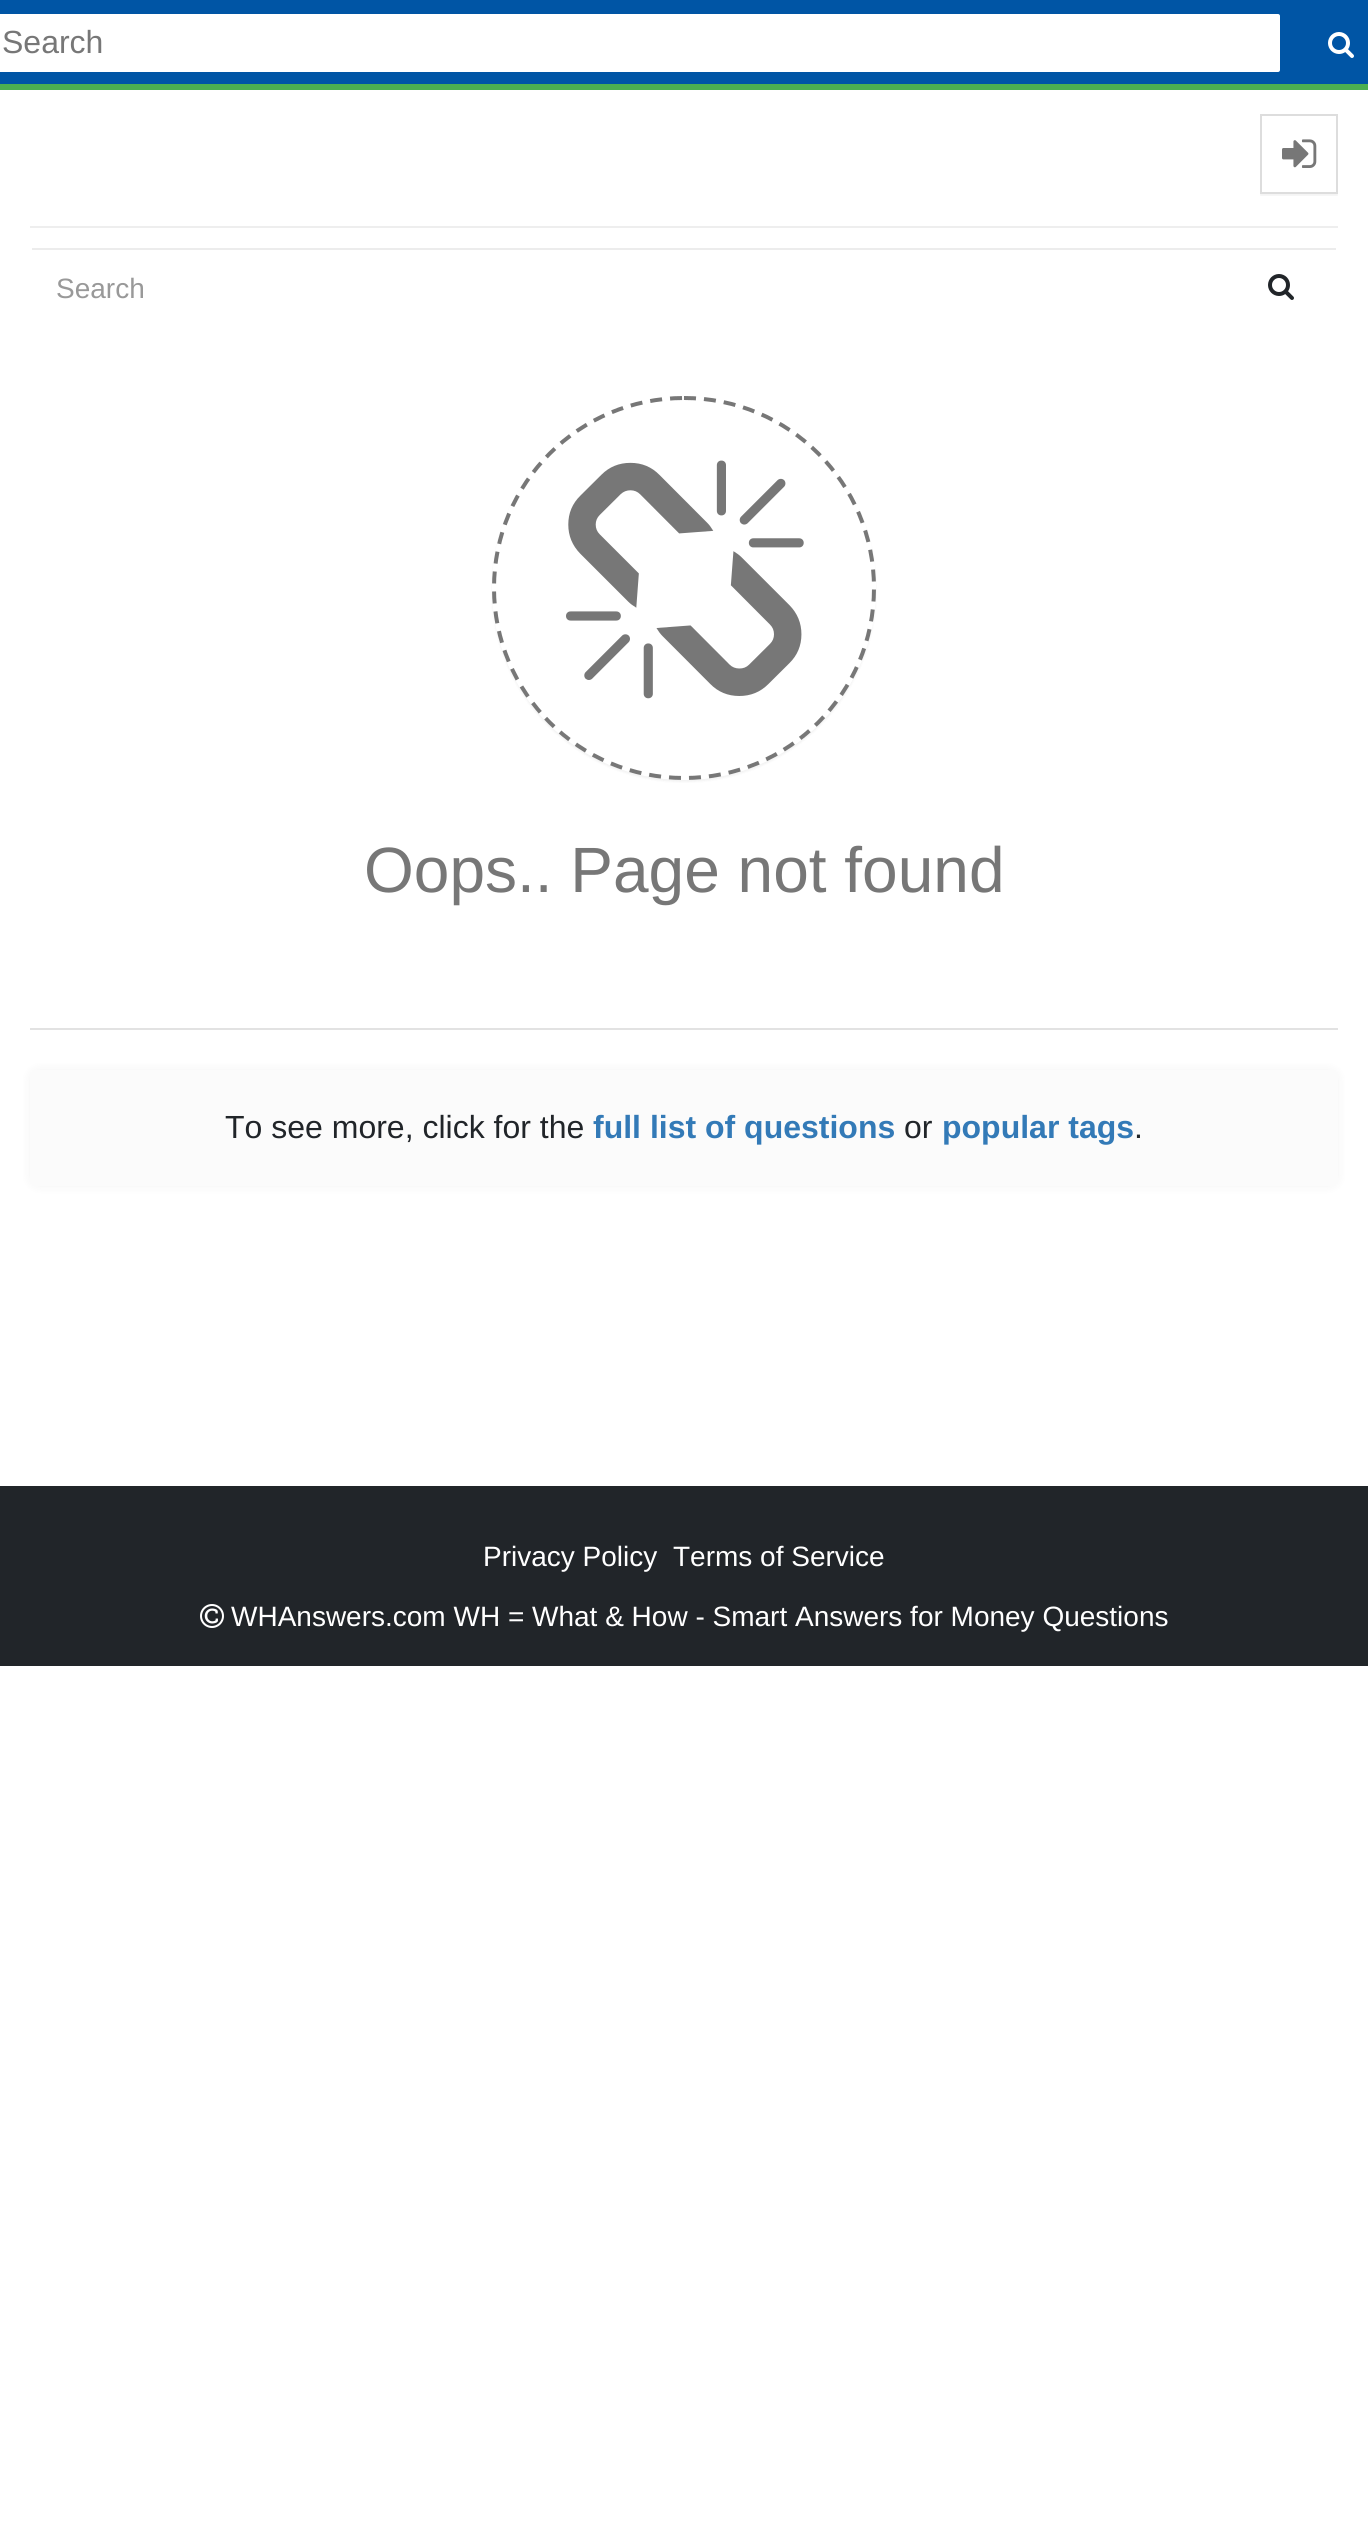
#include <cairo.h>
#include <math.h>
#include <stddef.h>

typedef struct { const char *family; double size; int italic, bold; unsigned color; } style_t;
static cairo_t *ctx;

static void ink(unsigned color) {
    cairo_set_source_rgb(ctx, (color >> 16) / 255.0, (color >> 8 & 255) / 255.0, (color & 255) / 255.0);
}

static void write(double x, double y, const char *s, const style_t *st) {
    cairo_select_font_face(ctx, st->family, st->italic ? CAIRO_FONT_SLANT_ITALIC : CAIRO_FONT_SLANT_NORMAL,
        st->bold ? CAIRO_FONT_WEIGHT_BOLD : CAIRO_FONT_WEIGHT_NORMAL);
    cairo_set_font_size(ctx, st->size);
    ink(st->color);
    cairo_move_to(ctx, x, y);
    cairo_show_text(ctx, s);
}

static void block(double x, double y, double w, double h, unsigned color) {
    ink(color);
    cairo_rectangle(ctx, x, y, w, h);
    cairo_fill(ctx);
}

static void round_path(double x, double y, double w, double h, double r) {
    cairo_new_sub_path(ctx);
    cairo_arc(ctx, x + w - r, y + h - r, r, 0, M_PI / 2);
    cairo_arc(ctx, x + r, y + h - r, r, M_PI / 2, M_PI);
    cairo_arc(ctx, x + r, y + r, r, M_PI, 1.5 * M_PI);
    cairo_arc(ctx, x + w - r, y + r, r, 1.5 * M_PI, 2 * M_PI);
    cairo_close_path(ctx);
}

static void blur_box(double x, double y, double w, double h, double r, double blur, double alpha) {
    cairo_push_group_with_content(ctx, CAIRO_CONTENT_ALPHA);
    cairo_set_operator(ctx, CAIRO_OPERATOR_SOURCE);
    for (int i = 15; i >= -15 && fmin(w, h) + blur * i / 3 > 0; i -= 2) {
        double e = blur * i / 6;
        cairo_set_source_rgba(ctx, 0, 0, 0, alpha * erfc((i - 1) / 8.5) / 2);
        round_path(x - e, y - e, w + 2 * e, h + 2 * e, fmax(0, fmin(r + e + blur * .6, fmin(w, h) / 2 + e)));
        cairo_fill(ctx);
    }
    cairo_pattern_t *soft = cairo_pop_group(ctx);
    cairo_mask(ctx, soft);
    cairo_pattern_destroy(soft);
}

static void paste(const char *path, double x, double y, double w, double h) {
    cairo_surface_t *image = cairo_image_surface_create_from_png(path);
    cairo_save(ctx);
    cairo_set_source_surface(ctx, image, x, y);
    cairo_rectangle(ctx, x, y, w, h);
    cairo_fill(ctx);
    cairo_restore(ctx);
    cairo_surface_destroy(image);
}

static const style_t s1 = {"Liberation Sans", 32, 0, 0, 0x777777};
static const style_t s2 = {"Liberation Sans", 28, 0, 0, 0x999999};
static const style_t s3 = {"Liberation Sans", 64, 0, 0, 0x777777};
static const style_t s4 = {"Liberation Sans", 32, 0, 0, 0x212529};
static const style_t s5 = {"Liberation Sans", 32, 0, 1, 0x337ab7};
static const style_t s6 = {"Liberation Sans", 28, 0, 0, 0xffffff};

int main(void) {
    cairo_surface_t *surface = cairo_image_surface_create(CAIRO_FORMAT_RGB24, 1368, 2524);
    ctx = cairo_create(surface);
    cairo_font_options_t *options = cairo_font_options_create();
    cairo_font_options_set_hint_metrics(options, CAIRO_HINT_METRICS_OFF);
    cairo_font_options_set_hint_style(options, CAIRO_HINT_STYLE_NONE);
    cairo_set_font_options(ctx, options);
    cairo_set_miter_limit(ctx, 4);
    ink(0xffffff);
    cairo_paint(ctx);
    block(0, 0, 1368, 84, 0x0055a5);
    block(0, 84, 1368, 6, 0x4caf50);
    ink(0xffffff);
    round_path(-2, 14, 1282, 58, 2);
    cairo_fill(ctx);
    write(2, 53, "Search", &s1);
    paste("pic1.png", 1328, 32, 26, 26);
    cairo_save(ctx);
    cairo_rectangle(ctx, 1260, 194, 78, 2);
    cairo_clip(ctx);
    ink(0x000000);
    blur_box(1260, 116, 78, 80, 0, 1, 0.05);
    cairo_restore(ctx);
    cairo_rectangle(ctx, 1261, 115, 76, 78);
    ink(0xdddddd);
    cairo_stroke(ctx);
    paste("pic2.png", 1282, 139, 35, 29);
    block(30, 226, 1308, 2, 0xeeeeee);
    block(32, 248, 1304, 2, 0xececec);
    write(56, 298, "Search", &s2);
    paste("pic3.png", 1268, 274, 26, 26);
    block(30, 1028, 1308, 2, 0xe2e2e2);
    cairo_save(ctx);
    cairo_set_fill_rule(ctx, CAIRO_FILL_RULE_EVEN_ODD);
    cairo_new_path(ctx);
    cairo_move_to(ctx, 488, 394);
    cairo_line_to(ctx, 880, 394);
    cairo_line_to(ctx, 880, 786);
    cairo_line_to(ctx, 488, 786);
    cairo_close_path(ctx);
    cairo_move_to(ctx, 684, 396);
    cairo_curve_to(ctx, 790, 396, 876, 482, 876, 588);
    cairo_curve_to(ctx, 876, 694, 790, 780, 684, 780);
    cairo_curve_to(ctx, 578, 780, 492, 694, 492, 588);
    cairo_curve_to(ctx, 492, 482, 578, 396, 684, 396);
    cairo_close_path(ctx);
    cairo_clip(ctx);
    ink(0x000000);
    blur_box(492, 398, 384, 384, 192, 1, 0.05);
    cairo_restore(ctx);
    cairo_new_path(ctx);
    cairo_move_to(ctx, 684, 398);
    cairo_curve_to(ctx, 789, 398, 874, 483, 874, 588);
    cairo_curve_to(ctx, 874, 693, 789, 778, 684, 778);
    cairo_curve_to(ctx, 579, 778, 494, 693, 494, 588);
    cairo_curve_to(ctx, 494, 483, 579, 398, 684, 398);
    cairo_close_path(ctx);
    ink(0x777777);
    cairo_set_line_width(ctx, 4);
    cairo_set_dash(ctx, (double[]){12, 8}, 2, 0);
    cairo_stroke(ctx);
    paste("pic4.png", 566, 460, 238, 239);
    write(364, 892, "Oops.. Page not found", &s3);
    ink(0x000000);
    blur_box(30, 1070, 1308, 116, 8, 5, 0.05);
    ink(0xfbfbfb);
    round_path(30, 1070, 1308, 116, 8);
    cairo_fill(ctx);
    write(225, 1138, "To see more, click for the", &s4);
    write(593, 1138, "full list of questions", &s5);
    write(904, 1138, "or", &s4);
    write(942, 1138, "popular tags", &s5);
    write(1134, 1138, ".", &s4);
    block(0, 1486, 1368, 180, 0x212529);
    write(483, 1566, "Privacy Policy", &s6);
    write(673, 1566, "Terms of Service", &s6);
    paste("pic5.png", 200, 1604, 24, 24);
    write(231, 1626, "WHAnswers.com WH = What & How - Smart Answers for Money Questions", &s6);
    cairo_surface_write_to_png(surface, "screenshot.png");
    cairo_font_options_destroy(options);
    cairo_destroy(ctx);
    cairo_surface_destroy(surface);
    return 0;
}
